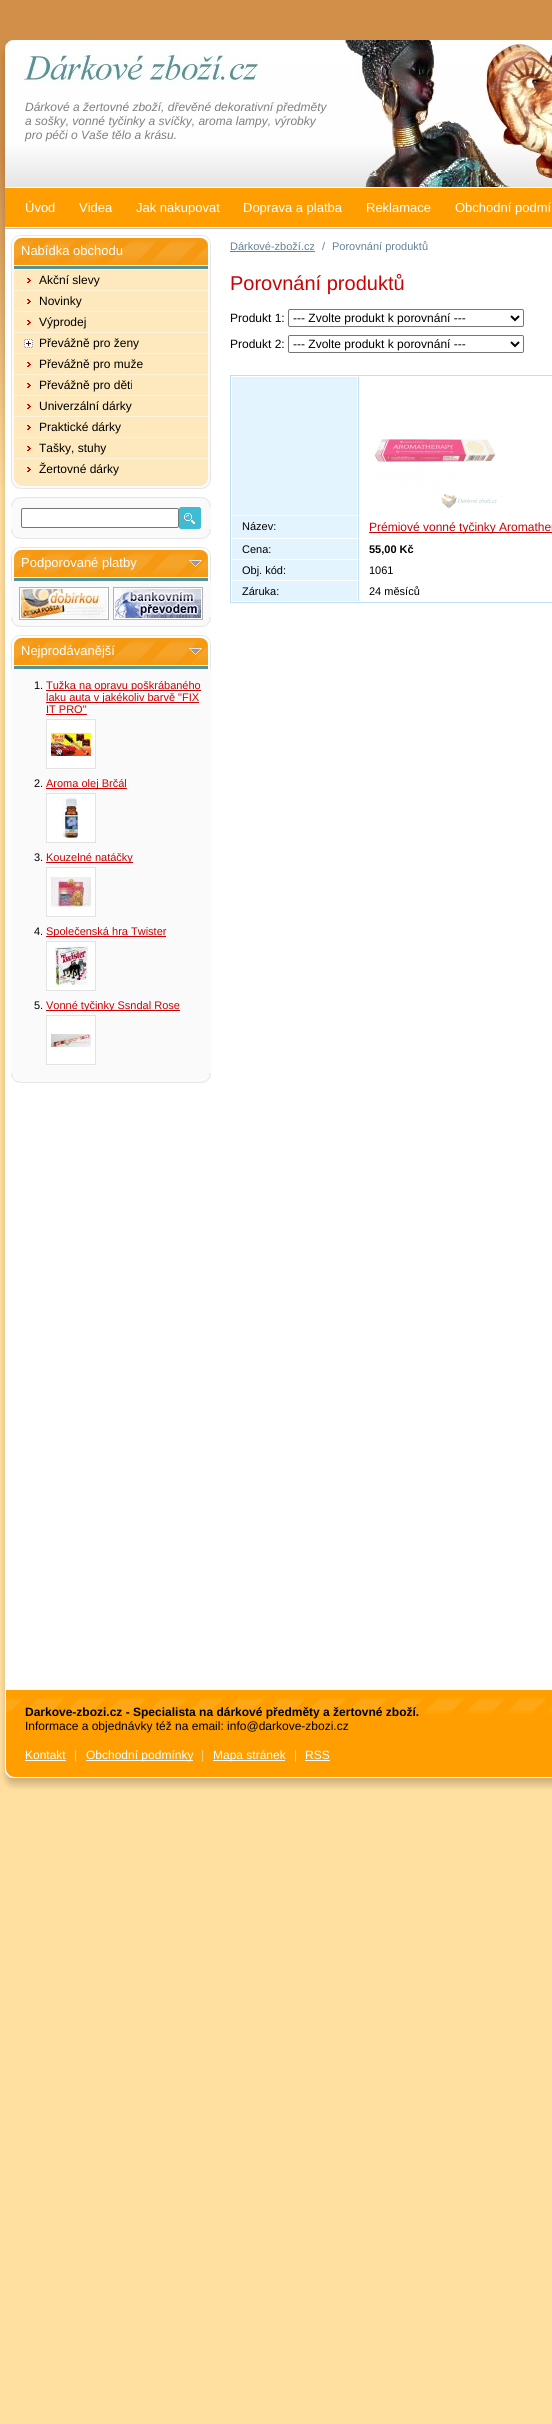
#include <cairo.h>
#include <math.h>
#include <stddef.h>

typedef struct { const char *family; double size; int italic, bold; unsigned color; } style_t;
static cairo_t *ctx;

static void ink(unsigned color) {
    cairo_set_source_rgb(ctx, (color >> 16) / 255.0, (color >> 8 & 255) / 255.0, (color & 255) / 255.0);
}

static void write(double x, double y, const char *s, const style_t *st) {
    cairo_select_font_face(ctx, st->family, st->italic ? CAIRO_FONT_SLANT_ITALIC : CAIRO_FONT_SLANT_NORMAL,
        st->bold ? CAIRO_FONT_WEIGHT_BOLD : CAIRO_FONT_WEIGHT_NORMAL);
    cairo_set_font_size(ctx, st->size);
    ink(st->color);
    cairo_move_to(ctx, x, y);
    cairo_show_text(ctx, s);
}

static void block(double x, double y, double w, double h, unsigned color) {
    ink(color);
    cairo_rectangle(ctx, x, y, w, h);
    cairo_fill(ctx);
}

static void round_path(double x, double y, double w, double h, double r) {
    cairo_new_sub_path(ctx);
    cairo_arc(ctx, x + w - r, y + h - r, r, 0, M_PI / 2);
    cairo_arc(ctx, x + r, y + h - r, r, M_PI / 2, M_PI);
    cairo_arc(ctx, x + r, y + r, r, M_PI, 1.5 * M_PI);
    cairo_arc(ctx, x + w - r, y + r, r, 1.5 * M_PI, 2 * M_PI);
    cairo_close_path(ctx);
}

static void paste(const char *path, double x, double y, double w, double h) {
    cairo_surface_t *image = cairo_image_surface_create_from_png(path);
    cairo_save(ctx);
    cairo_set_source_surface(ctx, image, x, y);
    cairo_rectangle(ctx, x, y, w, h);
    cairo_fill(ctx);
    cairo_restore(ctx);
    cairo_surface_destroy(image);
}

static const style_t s1 = {"Liberation Sans", 12, 1, 0, 0x807f80};
static const style_t s2 = {"Liberation Sans", 13, 0, 0, 0xffffff};
static const style_t s3 = {"Liberation Sans", 12, 0, 0, 0x000000};
static const style_t s4 = {"Liberation Sans", 11, 0, 0, 0x000000};
static const style_t s5 = {"Liberation Sans", 11, 0, 0, 0xcc0304};
static const style_t s6 = {"Liberation Sans", 11, 0, 0, 0x648298};
static const style_t s7 = {"Liberation Sans", 20, 0, 0, 0xcc0304};
static const style_t s8 = {"Liberation Sans", 12, 0, 0, 0xcc0304};
static const style_t s9 = {"Liberation Sans", 11, 0, 1, 0x000000};
static const style_t s10 = {"Liberation Sans", 12, 0, 1, 0x000000};
static const style_t s11 = {"Liberation Sans", 12, 0, 0, 0xffffff};
static const style_t s12 = {"Liberation Sans", 12, 0, 0, 0xffd392};

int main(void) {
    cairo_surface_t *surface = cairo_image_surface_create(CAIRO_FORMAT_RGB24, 552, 2424);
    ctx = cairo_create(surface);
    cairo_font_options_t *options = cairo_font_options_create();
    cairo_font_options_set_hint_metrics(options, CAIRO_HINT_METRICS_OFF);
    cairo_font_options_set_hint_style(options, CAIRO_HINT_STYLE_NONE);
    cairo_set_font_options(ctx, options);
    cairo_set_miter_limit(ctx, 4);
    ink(0xffe0a0);
    cairo_paint(ctx);
    paste("pic1.png", 0, 0, 552, 40);
    block(5, 229, 547, 1461, 0xffffff);
    paste("pic2.png", 0, 487, 5, 1203);
    paste("pic3.png", 0, 40, 12, 447);
    paste("pic4.png", 5, 40, 547, 147);
    write(25, 111, "Dárkové a žertovné zboží, dřevěné dekorativní předměty", &s1);
    write(25, 125, "a sošky, vonné tyčinky a svíčky, aroma lampy, výrobky", &s1);
    write(25, 139, "pro péči o Vaše tělo a krásu.", &s1);
    block(5, 188, 547, 39, 0xff9e00);
    block(5, 187, 547, 1, 0xffffff);
    block(5, 227, 547, 1, 0xffffff);
    write(25, 212, "Úvod", &s2);
    write(79, 212, "Videa", &s2);
    write(136, 212, "Jak nakupovat", &s2);
    write(243, 212, "Doprava a platba", &s2);
    write(366, 212, "Reklamace", &s2);
    write(455, 212, "Obchodní podmí", &s2);
    block(5, 228, 547, 1, 0xb2c1cc);
    block(14, 270, 194, 216, 0xfde9bd);
    paste("pic5.png", 11, 269, 200, 210);
    paste("pic6.png", 11, 479, 200, 10);
    paste("pic7.png", 11, 235, 200, 34);
    write(21, 255, "Nabídka obchodu", &s2);
    paste("pic8.png", 27, 278, 4, 5);
    block(14, 269, 194, 1, 0xfef2d8);
    write(39, 284, "Akční slevy", &s3);
    paste("pic8.png", 27, 299, 4, 5);
    block(14, 290, 194, 1, 0xfef2d8);
    write(39, 305, "Novinky", &s3);
    paste("pic8.png", 27, 320, 4, 5);
    block(14, 311, 194, 1, 0xfef2d8);
    write(39, 326, "Výprodej", &s3);
    paste("pic9.png", 24, 339, 9, 9);
    block(14, 332, 194, 1, 0xfef2d8);
    write(39, 347, "Převážně pro ženy", &s3);
    paste("pic8.png", 27, 362, 4, 5);
    block(14, 353, 194, 1, 0xfef2d8);
    write(39, 368, "Převážně pro muže", &s3);
    paste("pic8.png", 27, 383, 4, 5);
    block(14, 374, 194, 1, 0xfef2d8);
    write(39, 389, "Převážně pro děti", &s3);
    paste("pic8.png", 27, 404, 4, 5);
    block(14, 395, 194, 1, 0xfef2d8);
    write(39, 410, "Univerzální dárky", &s3);
    paste("pic8.png", 27, 425, 4, 5);
    block(14, 416, 194, 1, 0xfef2d8);
    write(39, 431, "Praktické dárky", &s3);
    paste("pic8.png", 27, 446, 4, 5);
    block(14, 437, 194, 1, 0xfef2d8);
    write(39, 452, "Tašky, stuhy", &s3);
    paste("pic8.png", 27, 467, 4, 5);
    block(14, 458, 194, 1, 0xfef2d8);
    write(39, 473, "Žertovné dárky", &s3);
    block(11, 498, 200, 40, 0xfafafa);
    paste("pic10.png", 11, 529, 200, 10);
    paste("pic11.png", 11, 497, 200, 10);
    ink(0xffffff);
    round_path(21.5, 508.5, 157, 19, 1.5);
    cairo_fill_preserve(ctx);
    ink(0x767676);
    cairo_set_line_width(ctx, 1);
    cairo_stroke(ctx);
    paste("pic12.png", 179, 507, 22, 22);
    block(11, 581, 200, 45, 0xfafafa);
    paste("pic10.png", 11, 617, 200, 10);
    paste("pic7.png", 11, 547, 200, 34);
    write(21, 567, "Podporované platby", &s2);
    paste("pic13.png", 189, 560, 13, 7);
    paste("pic14.png", 19, 587, 90, 33);
    paste("pic15.png", 113, 587, 90, 33);
    block(11, 669, 200, 413, 0xfafafa);
    paste("pic10.png", 11, 1073, 200, 10);
    paste("pic7.png", 11, 635, 200, 34);
    write(21, 655, "Nejprodávanější", &s2);
    paste("pic13.png", 189, 648, 13, 7);
    write(34, 689, "1.", &s4);
    block(46, 690, 155, 1, 0xcc0304);
    write(46, 689, "Tužka na opravu poškrábaného", &s5);
    block(46, 702, 153, 1, 0xcc0304);
    write(46, 701, "laku auta v jakékoliv barvě \"FIX", &s5);
    write(46, 713, "IT PRO\"", &s5);
    block(46, 714, 41, 1, 0xcc0304);
    block(47, 720, 48, 48, 0xffffff);
    paste("pic16.png", 51, 733, 40, 23);
    cairo_rectangle(ctx, 46.5, 719.5, 49, 49);
    ink(0xe3e3e3);
    cairo_stroke(ctx);
    write(34, 787, "2.", &s4);
    block(46, 788, 81, 1, 0xcc0304);
    write(46, 787, "Aroma olej Brčál", &s5);
    block(47, 794, 48, 48, 0xffffff);
    paste("pic17.png", 62, 798, 19, 40);
    cairo_rectangle(ctx, 46.5, 793.5, 49, 49);
    ink(0xe3e3e3);
    cairo_stroke(ctx);
    write(34, 861, "3.", &s4);
    block(46, 862, 87, 1, 0xcc0304);
    write(46, 861, "Kouzelné natáčky", &s5);
    block(47, 868, 48, 48, 0xffffff);
    paste("pic18.png", 51, 877, 40, 30);
    cairo_rectangle(ctx, 46.5, 867.5, 49, 49);
    ink(0xe3e3e3);
    cairo_stroke(ctx);
    write(34, 935, "4.", &s4);
    block(46, 936, 120, 1, 0xcc0304);
    write(46, 935, "Společenská hra Twister", &s5);
    block(47, 942, 48, 48, 0xffffff);
    paste("pic19.png", 55, 946, 33, 40);
    cairo_rectangle(ctx, 46.5, 941.5, 49, 49);
    ink(0xe3e3e3);
    cairo_stroke(ctx);
    write(34, 1009, "5.", &s4);
    block(46, 1010, 134, 1, 0xcc0304);
    write(46, 1009, "Vonné tyčinky Ssndal Rose", &s5);
    block(47, 1016, 48, 48, 0xffffff);
    paste("pic20.png", 51, 1034, 40, 13);
    cairo_rectangle(ctx, 46.5, 1015.5, 49, 49);
    ink(0xe3e3e3);
    cairo_stroke(ctx);
    write(230, 250, "Dárkové-zboží.cz", &s6);
    block(230, 251, 85, 1, 0x648298);
    write(322, 250, "/", &s6);
    write(332, 250, "Porovnání produktů", &s6);
    write(230, 290, "Porovnání produktů", &s7);
    write(230, 322, "Produkt 1:", &s3);
    round_path(288.5, 309.5, 235, 17, 1.5);
    ink(0x767676);
    cairo_stroke(ctx);
    cairo_new_path(ctx);
    cairo_move_to(ctx, 511, 316);
    cairo_line_to(ctx, 515, 320);
    cairo_line_to(ctx, 519, 316);
    ink(0x000000);
    cairo_set_line_width(ctx, 2);
    cairo_stroke(ctx);
    write(293, 322, "--- Zvolte produkt k porovnání ---", &s3);
    write(230, 348, "Produkt 2:", &s3);
    round_path(288.5, 335.5, 235, 17, 1.5);
    ink(0x767676);
    cairo_set_line_width(ctx, 1);
    cairo_stroke(ctx);
    cairo_new_path(ctx);
    cairo_move_to(ctx, 511, 342);
    cairo_line_to(ctx, 515, 346);
    cairo_line_to(ctx, 519, 342);
    ink(0x000000);
    cairo_set_line_width(ctx, 2);
    cairo_stroke(ctx);
    write(293, 348, "--- Zvolte produkt k porovnání ---", &s3);
    cairo_rectangle(ctx, 230.5, 375.5, 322, 227);
    ink(0xbfdff5);
    cairo_set_line_width(ctx, 1);
    cairo_stroke(ctx);
    block(232, 377, 125, 138, 0xe3f4ff);
    block(358, 377, 1, 138, 0xbfdff5);
    paste("pic21.png", 374, 439, 123, 70);
    block(232, 516, 125, 22, 0xe3f4ff);
    write(242, 530, "Název:", &s4);
    block(358, 516, 1, 22, 0xbfdff5);
    block(369, 532, 183, 1, 0xcc0304);
    write(369, 531, "Prémiové vonné tyčinky Aromather", &s8);
    block(232, 539, 125, 20, 0xe3f4ff);
    write(242, 553, "Cena:", &s4);
    block(358, 539, 1, 20, 0xbfdff5);
    write(369, 553, "55,00 Kč", &s9);
    block(232, 560, 125, 20, 0xe3f4ff);
    write(242, 574, "Obj. kód:", &s4);
    block(358, 560, 1, 20, 0xbfdff5);
    write(369, 574, "1061", &s4);
    block(232, 581, 125, 20, 0xe3f4ff);
    write(242, 595, "Záruka:", &s4);
    block(358, 581, 1, 20, 0xbfdff5);
    write(369, 595, "24 měsíců", &s4);
    block(6, 1690, 546, 87, 0xff9e00);
    paste("pic22.png", 0, 1690, 6, 100);
    paste("pic23.png", 1, 1768, 551, 22);
    paste("pic24.png", 6, 1697, 546, 17);
    write(25, 1716, "Darkove-zbozi.cz - Specialista na dárkové předměty a žertovné zboží.", &s10);
    write(25, 1730, "Informace a objednávky též na email: info@darkove-zbozi.cz", &s3);
    write(25, 1759, "Kontakt", &s11);
    block(25, 1760, 41, 1, 0xffffff);
    write(74, 1759, "|", &s12);
    block(86, 1760, 107, 1, 0xffffff);
    write(86, 1759, "Obchodní podmínky", &s11);
    write(201, 1759, "|", &s12);
    block(213, 1760, 72, 1, 0xffffff);
    write(213, 1759, "Mapa stránek", &s11);
    write(294, 1759, "|", &s12);
    write(305, 1759, "RSS", &s11);
    block(305, 1760, 25, 1, 0xffffff);
    cairo_surface_write_to_png(surface, "screenshot.png");
    cairo_font_options_destroy(options);
    cairo_destroy(ctx);
    cairo_surface_destroy(surface);
    return 0;
}
